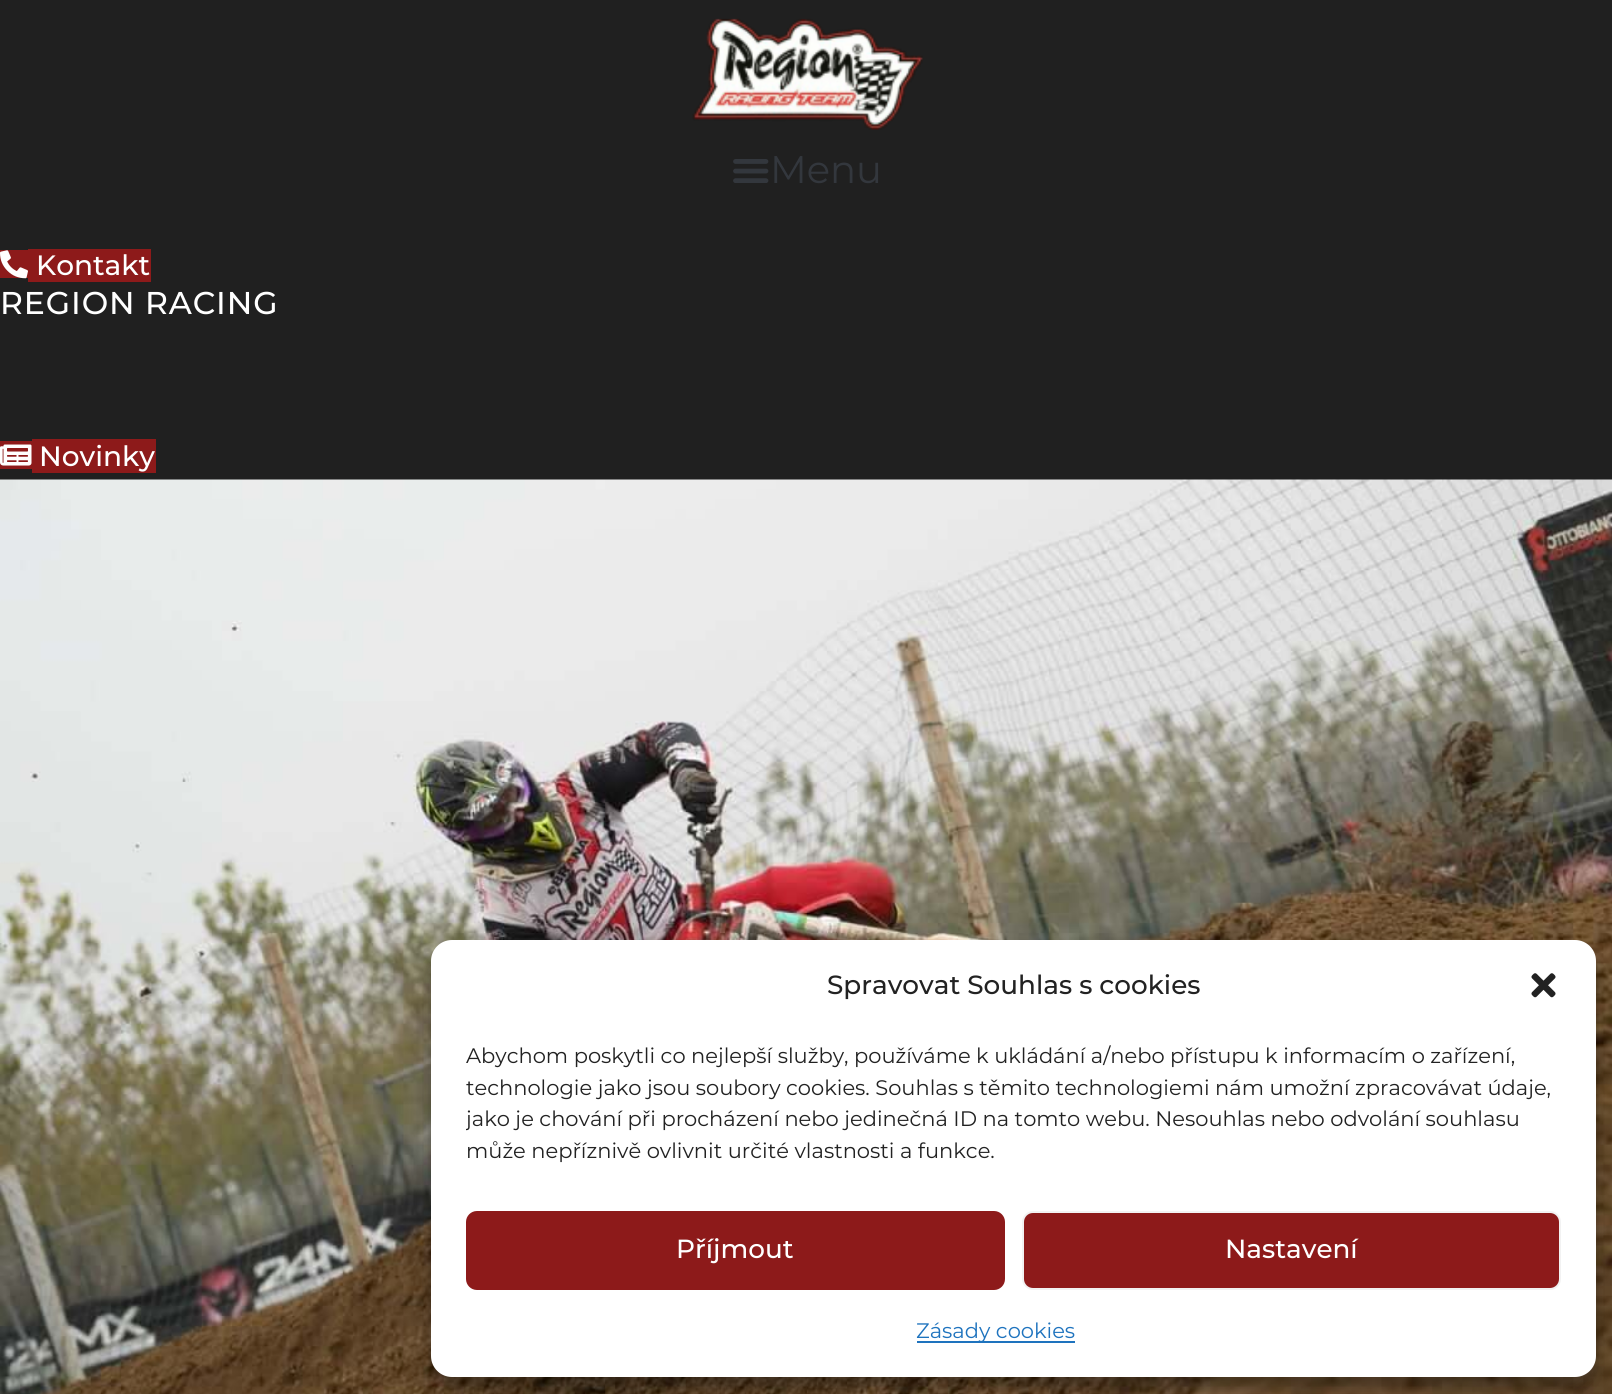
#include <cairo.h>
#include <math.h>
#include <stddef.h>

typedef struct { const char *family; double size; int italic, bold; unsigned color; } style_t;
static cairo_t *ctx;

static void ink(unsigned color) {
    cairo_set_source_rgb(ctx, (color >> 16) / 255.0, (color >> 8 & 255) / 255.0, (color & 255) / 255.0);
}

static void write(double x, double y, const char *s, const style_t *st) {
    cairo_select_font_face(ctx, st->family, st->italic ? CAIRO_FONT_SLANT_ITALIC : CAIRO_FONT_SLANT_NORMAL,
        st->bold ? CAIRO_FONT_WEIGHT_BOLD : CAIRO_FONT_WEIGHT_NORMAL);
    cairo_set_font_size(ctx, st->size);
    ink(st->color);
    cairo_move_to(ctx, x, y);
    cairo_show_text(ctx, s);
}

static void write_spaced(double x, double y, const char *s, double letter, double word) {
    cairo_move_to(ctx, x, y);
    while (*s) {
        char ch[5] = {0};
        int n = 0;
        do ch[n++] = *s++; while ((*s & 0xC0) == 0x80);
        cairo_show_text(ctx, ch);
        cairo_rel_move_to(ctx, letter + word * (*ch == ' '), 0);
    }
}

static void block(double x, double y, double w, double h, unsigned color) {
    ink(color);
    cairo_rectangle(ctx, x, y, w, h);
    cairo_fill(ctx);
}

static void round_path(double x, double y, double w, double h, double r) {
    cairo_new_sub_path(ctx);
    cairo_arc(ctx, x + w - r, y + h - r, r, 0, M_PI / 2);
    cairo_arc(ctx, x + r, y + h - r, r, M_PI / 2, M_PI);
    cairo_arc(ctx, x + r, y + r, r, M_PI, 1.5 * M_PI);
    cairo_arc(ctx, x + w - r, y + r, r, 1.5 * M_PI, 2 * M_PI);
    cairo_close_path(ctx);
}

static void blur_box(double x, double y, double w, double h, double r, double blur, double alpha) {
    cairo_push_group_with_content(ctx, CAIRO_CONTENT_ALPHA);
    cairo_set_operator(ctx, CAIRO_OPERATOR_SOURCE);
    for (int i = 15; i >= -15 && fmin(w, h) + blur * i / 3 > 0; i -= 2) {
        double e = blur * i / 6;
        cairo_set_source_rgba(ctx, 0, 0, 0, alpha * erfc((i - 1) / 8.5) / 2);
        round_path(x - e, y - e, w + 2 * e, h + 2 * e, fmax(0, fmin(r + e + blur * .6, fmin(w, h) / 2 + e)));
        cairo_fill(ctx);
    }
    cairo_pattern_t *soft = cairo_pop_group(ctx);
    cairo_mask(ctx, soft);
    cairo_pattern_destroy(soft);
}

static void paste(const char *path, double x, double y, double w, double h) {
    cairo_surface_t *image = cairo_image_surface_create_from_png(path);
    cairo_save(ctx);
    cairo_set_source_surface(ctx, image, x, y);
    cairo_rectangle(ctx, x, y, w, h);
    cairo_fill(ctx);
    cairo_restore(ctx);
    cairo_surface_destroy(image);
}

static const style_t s1 = {"Montserrat", 38.5, 0, 0, 0x33373d};
static const style_t s2 = {"Montserrat Medium", 28, 0, 0, 0xffffff};
static const style_t s3 = {"Montserrat Medium", 26.25, 0, 0, 0x222222};
static const style_t s4 = {"Montserrat", 21, 0, 0, 0x222222};
static const style_t s5 = {"Montserrat Medium", 26.25, 0, 0, 0xffffff};
static const style_t s6 = {"Montserrat", 21, 0, 0, 0x1e73be};

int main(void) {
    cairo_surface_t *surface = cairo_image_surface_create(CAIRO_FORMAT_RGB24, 1612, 1394);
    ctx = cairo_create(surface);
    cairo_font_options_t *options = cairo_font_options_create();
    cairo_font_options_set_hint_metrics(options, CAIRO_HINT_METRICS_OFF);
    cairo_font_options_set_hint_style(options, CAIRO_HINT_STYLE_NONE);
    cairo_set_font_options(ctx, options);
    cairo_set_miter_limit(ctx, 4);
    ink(0x202020);
    cairo_paint(ctx);
    paste("pic1.png", 692, 18, 231, 112);
    paste("pic2.png", 733, 159, 36, 24);
    write(770, 183, "Menu", &s1);
    block(0, 250, 28, 28, 0x8d1a1a);
    block(28, 249, 123, 33, 0x8d1a1a);
    paste("pic3.png", 0, 250, 28, 29);
    write(36, 275, "Kontakt", &s2);
    cairo_set_font_size(ctx, 31.5);
    write_spaced(0, 314, "REGION RACING", 0.9, 0);
    block(0, 441, 32, 28, 0x8d1a1a);
    block(32, 439, 124, 34, 0x8d1a1a);
    paste("pic4.png", 0, 444, 32, 22);
    write(39, 466, "Novinky", &s2);
    paste("pic5.png", 0, 479, 1612, 915);
    ink(0x000000);
    blur_box(431, 950, 1165, 438, 21, 5, 0.23);
    blur_box(431, 957, 1165, 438, 21, 17.5, 0.19);
    ink(0xffffff);
    round_path(431, 940, 1165, 437, 21);
    cairo_fill(ctx);
    write(827, 994, "Spravovat Souhlas s cookies", &s3);
    paste("pic6.png", 1531, 973, 25, 25);
    write(466, 1063, "Abychom poskytli co nejlepší služby, používáme k ukládání a/nebo přístupu k informacím o zařízení,", &s4);
    write(466, 1095, "technologie jako jsou soubory cookies. Souhlas s těmito technologiemi nám umožní zpracovávat údaje,", &s4);
    cairo_save(ctx);
    cairo_rectangle(ctx, 466, 1041, 1095, 135);
    cairo_clip(ctx);
    write(466, 1126, "jako je chování při procházení nebo jedinečná ID na tomto webu. Nesouhlas nebo odvolání souhlasu", &s4);
    cairo_restore(ctx);
    write(466, 1158, "může nepříznivě ovlivnit určité vlastnosti a funkce.", &s4);
    ink(0x8d1a1a);
    round_path(467, 1212, 537, 77, 10);
    cairo_fill_preserve(ctx);
    cairo_stroke(ctx);
    write(676, 1258, "Příjmout", &s5);
    ink(0x8d1a1a);
    round_path(1023, 1212, 537, 77, 10);
    cairo_fill_preserve(ctx);
    ink(0xf2f2f2);
    cairo_stroke(ctx);
    write(1225, 1258, "Nastavení", &s5);
    block(917, 1341, 158, 2, 0x1e73be);
    write(916, 1338, "Zásady cookies", &s6);
    cairo_surface_write_to_png(surface, "screenshot.png");
    cairo_font_options_destroy(options);
    cairo_destroy(ctx);
    cairo_surface_destroy(surface);
    return 0;
}
